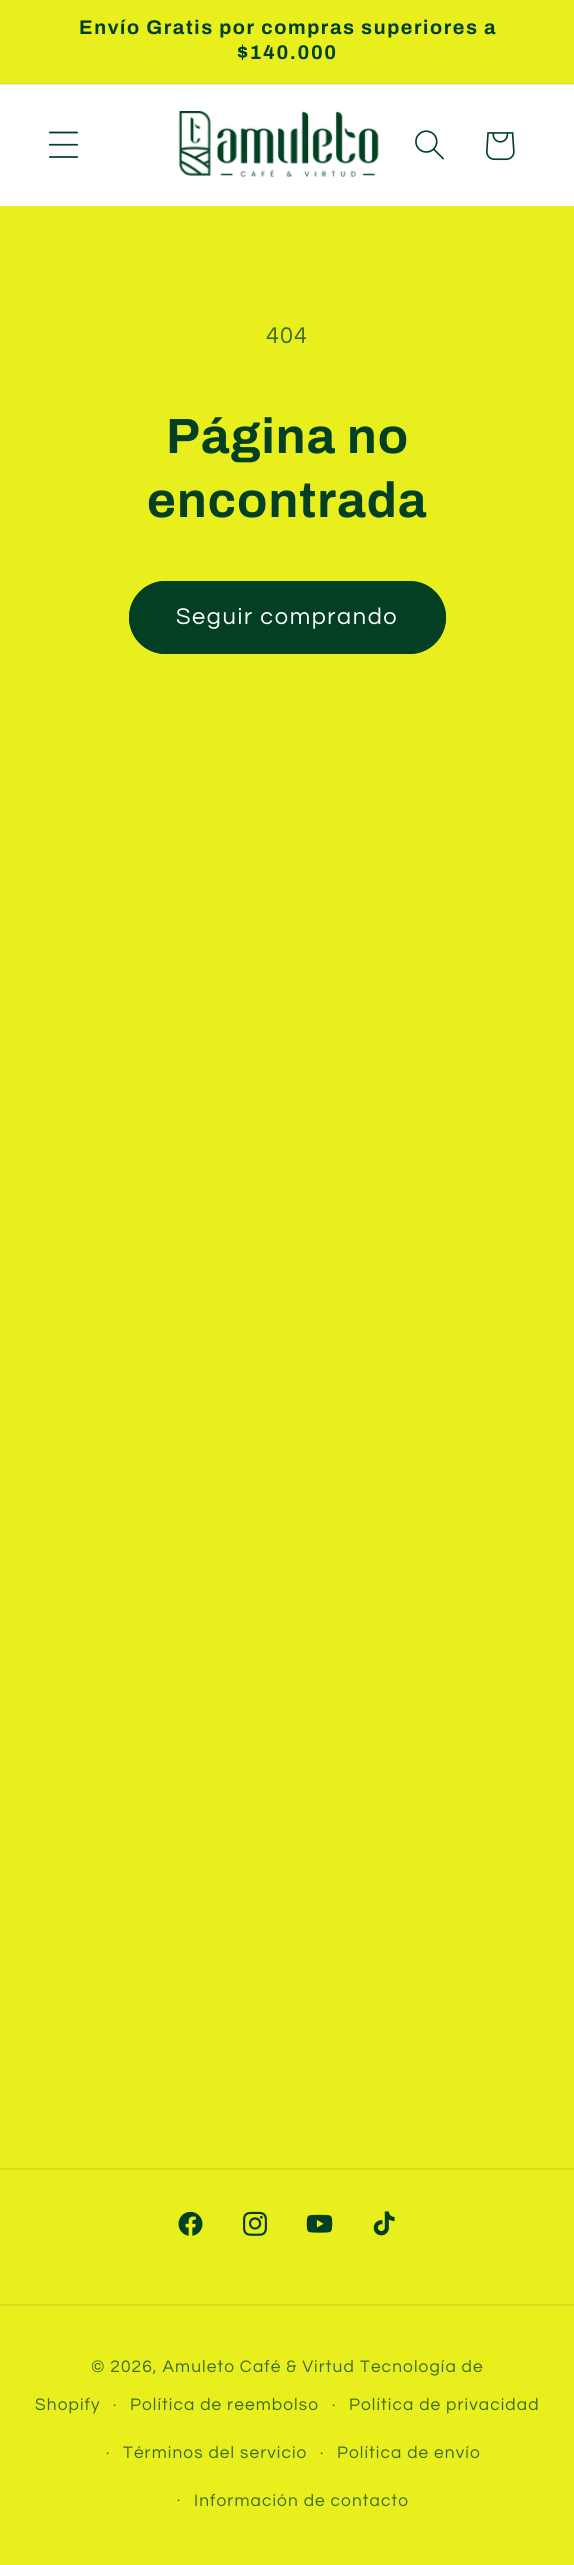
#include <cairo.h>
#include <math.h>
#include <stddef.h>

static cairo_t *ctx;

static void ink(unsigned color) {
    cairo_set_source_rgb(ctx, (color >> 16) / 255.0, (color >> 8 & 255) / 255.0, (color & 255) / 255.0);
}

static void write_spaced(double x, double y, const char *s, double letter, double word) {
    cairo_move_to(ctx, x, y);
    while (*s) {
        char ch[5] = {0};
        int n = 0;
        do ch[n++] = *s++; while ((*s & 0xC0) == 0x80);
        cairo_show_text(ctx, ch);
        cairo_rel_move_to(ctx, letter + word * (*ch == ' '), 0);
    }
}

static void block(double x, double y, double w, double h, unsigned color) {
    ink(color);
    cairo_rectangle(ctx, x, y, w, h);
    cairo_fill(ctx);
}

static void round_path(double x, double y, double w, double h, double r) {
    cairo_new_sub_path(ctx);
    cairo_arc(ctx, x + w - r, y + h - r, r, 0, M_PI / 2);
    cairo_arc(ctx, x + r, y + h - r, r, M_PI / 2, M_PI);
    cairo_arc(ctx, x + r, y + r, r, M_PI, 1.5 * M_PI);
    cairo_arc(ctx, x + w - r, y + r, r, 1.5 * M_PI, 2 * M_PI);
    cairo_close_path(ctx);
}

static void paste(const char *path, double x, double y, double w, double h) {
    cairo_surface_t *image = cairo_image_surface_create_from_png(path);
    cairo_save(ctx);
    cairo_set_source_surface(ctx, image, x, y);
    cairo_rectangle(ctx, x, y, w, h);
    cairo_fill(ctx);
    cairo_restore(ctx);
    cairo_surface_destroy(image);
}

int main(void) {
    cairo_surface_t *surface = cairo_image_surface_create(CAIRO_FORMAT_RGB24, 574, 2565);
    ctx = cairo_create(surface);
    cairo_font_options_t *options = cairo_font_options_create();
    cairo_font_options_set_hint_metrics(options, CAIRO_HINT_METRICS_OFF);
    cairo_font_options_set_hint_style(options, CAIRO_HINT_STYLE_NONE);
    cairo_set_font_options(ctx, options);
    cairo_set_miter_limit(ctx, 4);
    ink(0xe8ef1d);
    cairo_paint(ctx);
    block(0, 83, 574, 1, 0xd6e11d);
    cairo_select_font_face(ctx, "Archivo", CAIRO_FONT_SLANT_NORMAL, CAIRO_FONT_WEIGHT_BOLD);
    cairo_set_font_size(ctx, 19.8);
    ink(0x034023);
    write_spaced(79, 34, "Envío Gratis por compras superiores a", 1.6, 0);
    write_spaced(237, 59, "$140.000", 1.6, 0);
    block(0, 85, 574, 121, 0xffffff);
    block(0, 84, 574, 1, 0xebf0ed);
    paste("pic1.png", 48, 131, 31, 27);
    paste("pic2.png", 178, 111, 201, 66);
    paste("pic3.png", 415, 130, 29, 30);
    paste("pic4.png", 486, 132, 29, 29);
    cairo_select_font_face(ctx, "Questrial", CAIRO_FONT_SLANT_NORMAL, CAIRO_FONT_WEIGHT_NORMAL);
    cairo_set_font_size(ctx, 23.6);
    ink(0x3c6c22);
    write_spaced(266, 343, "404", 1, 0);
    cairo_select_font_face(ctx, "Archivo", CAIRO_FONT_SLANT_NORMAL, CAIRO_FONT_WEIGHT_BOLD);
    cairo_set_font_size(ctx, 49.5);
    ink(0x034023);
    write_spaced(166, 453, "Página no", 1, 0);
    write_spaced(147, 517, "encontrada", 1, 0);
    round_path(129, 581, 317, 73, 36.5);
    cairo_fill(ctx);
    round_path(130, 582, 315, 71, 35.5);
    cairo_stroke(ctx);
    cairo_select_font_face(ctx, "Questrial", CAIRO_FONT_SLANT_NORMAL, CAIRO_FONT_WEIGHT_NORMAL);
    cairo_set_font_size(ctx, 23.6);
    ink(0xffffff);
    write_spaced(176, 624, "Seguir comprando", 1.6, 0);
    block(0, 2168, 574, 2, 0xd6e11d);
    paste("pic5.png", 178, 2211, 25, 25);
    paste("pic6.png", 243, 2211, 24, 25);
    paste("pic7.png", 306, 2214, 27, 19);
    paste("pic8.png", 373, 2211, 22, 25);
    block(0, 2304, 574, 2, 0xd6e11d);
    cairo_set_font_size(ctx, 17.3);
    ink(0x3c6c22);
    write_spaced(91, 2372, "© 2026, Amuleto Café & Virtud", 1.1, 0);
    write_spaced(360, 2372, "Tecnología de", 1.1, 0);
    write_spaced(35, 2410, "Shopify", 1.1, 0);
    cairo_set_font_size(ctx, 16);
    write_spaced(113, 2410, "·", 1.1, 0);
    cairo_set_font_size(ctx, 17.3);
    write_spaced(130, 2410, "Política de reembolso", 1.1, 0);
    cairo_set_font_size(ctx, 16);
    write_spaced(332, 2410, "·", 1.1, 0);
    cairo_set_font_size(ctx, 17.3);
    write_spaced(349, 2410, "Política de privacidad", 1.1, 0);
    cairo_set_font_size(ctx, 16);
    write_spaced(106, 2458, "·", 1.1, 0);
    cairo_set_font_size(ctx, 17.3);
    write_spaced(123, 2458, "Términos del servicio", 1.1, 0);
    cairo_set_font_size(ctx, 16);
    write_spaced(320, 2458, "·", 1.1, 0);
    cairo_set_font_size(ctx, 17.3);
    write_spaced(337, 2458, "Política de envío", 1.1, 0);
    cairo_set_font_size(ctx, 16);
    write_spaced(177, 2505, "·", 1.1, 0);
    cairo_set_font_size(ctx, 17.3);
    write_spaced(194, 2506, "Información de contacto", 1.1, 0);
    cairo_surface_write_to_png(surface, "screenshot.png");
    cairo_font_options_destroy(options);
    cairo_destroy(ctx);
    cairo_surface_destroy(surface);
    return 0;
}
